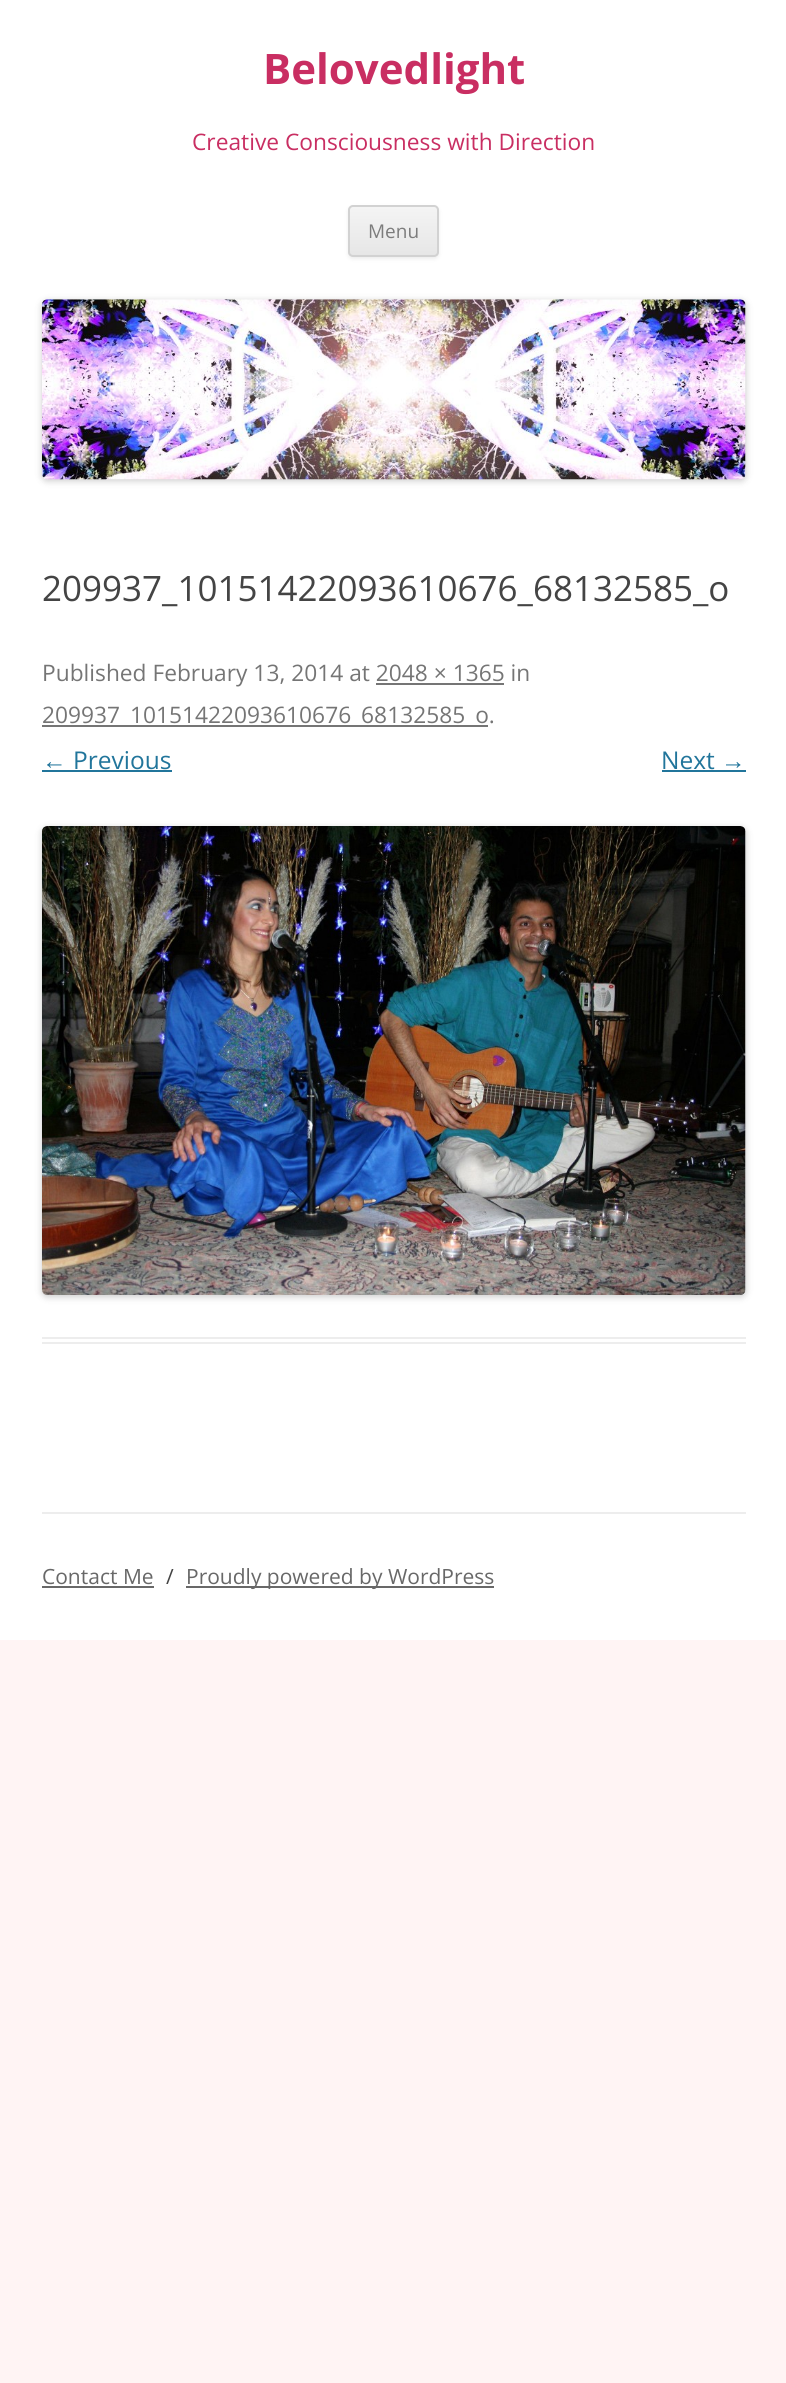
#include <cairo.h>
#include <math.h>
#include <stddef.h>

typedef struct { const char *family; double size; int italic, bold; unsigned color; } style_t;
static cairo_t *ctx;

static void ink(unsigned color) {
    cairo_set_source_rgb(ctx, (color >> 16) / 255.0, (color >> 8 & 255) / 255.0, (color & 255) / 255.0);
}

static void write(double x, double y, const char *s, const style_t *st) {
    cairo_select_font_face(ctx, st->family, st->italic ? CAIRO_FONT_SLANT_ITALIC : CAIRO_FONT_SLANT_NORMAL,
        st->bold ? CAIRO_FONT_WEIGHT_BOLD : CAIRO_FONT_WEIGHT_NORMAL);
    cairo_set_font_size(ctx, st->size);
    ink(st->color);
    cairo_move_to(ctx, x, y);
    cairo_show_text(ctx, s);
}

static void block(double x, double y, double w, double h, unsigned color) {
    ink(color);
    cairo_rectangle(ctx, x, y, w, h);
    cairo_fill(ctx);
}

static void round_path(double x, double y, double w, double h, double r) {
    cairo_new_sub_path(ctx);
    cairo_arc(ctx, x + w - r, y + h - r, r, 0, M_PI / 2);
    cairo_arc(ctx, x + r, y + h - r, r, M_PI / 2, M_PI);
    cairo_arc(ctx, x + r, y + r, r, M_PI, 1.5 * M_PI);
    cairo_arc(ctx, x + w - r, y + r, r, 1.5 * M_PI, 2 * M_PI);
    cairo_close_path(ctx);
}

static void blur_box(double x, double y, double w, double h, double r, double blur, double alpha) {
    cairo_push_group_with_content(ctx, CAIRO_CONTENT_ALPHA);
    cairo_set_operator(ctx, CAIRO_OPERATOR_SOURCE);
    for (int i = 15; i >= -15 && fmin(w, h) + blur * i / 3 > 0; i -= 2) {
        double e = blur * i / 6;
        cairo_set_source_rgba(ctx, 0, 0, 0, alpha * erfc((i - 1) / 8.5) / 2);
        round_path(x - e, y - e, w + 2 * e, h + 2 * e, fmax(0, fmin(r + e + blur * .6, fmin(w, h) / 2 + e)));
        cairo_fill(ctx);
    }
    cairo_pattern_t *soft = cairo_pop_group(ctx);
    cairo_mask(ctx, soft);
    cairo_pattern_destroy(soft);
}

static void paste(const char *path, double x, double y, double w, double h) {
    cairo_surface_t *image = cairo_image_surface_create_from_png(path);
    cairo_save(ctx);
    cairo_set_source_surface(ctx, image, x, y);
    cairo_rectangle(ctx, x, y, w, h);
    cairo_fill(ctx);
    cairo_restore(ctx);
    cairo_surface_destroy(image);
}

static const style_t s1 = {"Open Sans", 42, 0, 1, 0xc92e62};
static const style_t s2 = {"Open Sans", 22.75, 0, 0, 0xc92e62};
static const style_t s3 = {"Open Sans", 19, 0, 0, 0x7c7c7c};
static const style_t s4 = {"Open Sans", 35, 0, 0, 0x444444};
static const style_t s5 = {"Open Sans", 22.75, 0, 0, 0x757575};
static const style_t s6 = {"Liberation Sans", 24.5, 0, 0, 0x21759b};
static const style_t s7 = {"Open Sans", 24.5, 0, 0, 0x21759b};
static const style_t s8 = {"Open Sans", 21, 0, 0, 0x686868};
static const style_t s9 = {"Open Sans", 21, 0, 0, 0x444444};

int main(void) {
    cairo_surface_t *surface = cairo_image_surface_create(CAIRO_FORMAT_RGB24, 786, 2383);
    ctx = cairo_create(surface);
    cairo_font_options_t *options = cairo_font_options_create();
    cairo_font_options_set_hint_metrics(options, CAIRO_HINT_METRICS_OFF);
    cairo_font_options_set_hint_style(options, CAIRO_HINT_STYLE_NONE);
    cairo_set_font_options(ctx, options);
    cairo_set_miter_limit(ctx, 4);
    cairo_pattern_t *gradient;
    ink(0xfff4f4);
    cairo_paint(ctx);
    block(0, 0, 786, 1640, 0xffffff);
    write(263, 84, "Belovedlight", &s1);
    write(192, 150, "Creative Consciousness with Direction", &s2);
    ink(0x404040);
    blur_box(348, 207, 91, 52, 5, 2, 0.1);
    cairo_save(ctx);
    round_path(348, 205, 91, 52, 5);
    cairo_clip(ctx);
    gradient = cairo_pattern_create_linear(394, 207, 394, 256);
    cairo_pattern_add_color_stop_rgba(gradient, 0, 0.957, 0.957, 0.957, 1);
    cairo_pattern_add_color_stop_rgba(gradient, 1, 0.902, 0.902, 0.902, 1);
    cairo_set_source(ctx, gradient);
    cairo_pattern_destroy(gradient);
    cairo_rectangle(ctx, 348, 207, 91, 49);
    cairo_fill(ctx);
    cairo_restore(ctx);
    round_path(349, 206, 89, 50, 4);
    ink(0xd2d2d2);
    cairo_stroke(ctx);
    write(368, 238, "Menu", &s3);
    ink(0x000000);
    blur_box(42, 301, 704, 180, 5, 3.5, 0.2);
    paste("pic1.png", 42, 299, 704, 181);
    block(42, 1337, 704, 2, 0xededed);
    block(42, 1342, 704, 2, 0xededed);
    write(42, 601, "209937_10151422093610676_68132585_o", &s4);
    write(42, 681, "Published February 13, 2014 at 2048 × 1365 in", &s5);
    block(376, 683, 128, 2, 0x757575);
    block(42, 725, 446, 2, 0x757575);
    write(42, 723, "209937_10151422093610676_68132585_o.", &s5);
    write(42, 769, "←", &s6);
    block(42, 770, 130, 2, 0x21759b);
    write(73, 769, "Previous", &s7);
    write(661, 769, "Next", &s7);
    write(721, 769, "→", &s6);
    block(662, 770, 84, 2, 0x21759b);
    ink(0x000000);
    blur_box(42, 828, 704, 469, 5, 3.5, 0.2);
    paste("pic2.png", 42, 826, 704, 469);
    block(42, 1512, 704, 2, 0xededed);
    write(42, 1584, "Contact Me", &s8);
    block(42, 1586, 112, 2, 0x686868);
    write(166, 1584, "/", &s9);
    block(186, 1586, 308, 2, 0x686868);
    write(186, 1584, "Proudly powered by WordPress", &s8);
    cairo_surface_write_to_png(surface, "screenshot.png");
    cairo_font_options_destroy(options);
    cairo_destroy(ctx);
    cairo_surface_destroy(surface);
    return 0;
}
